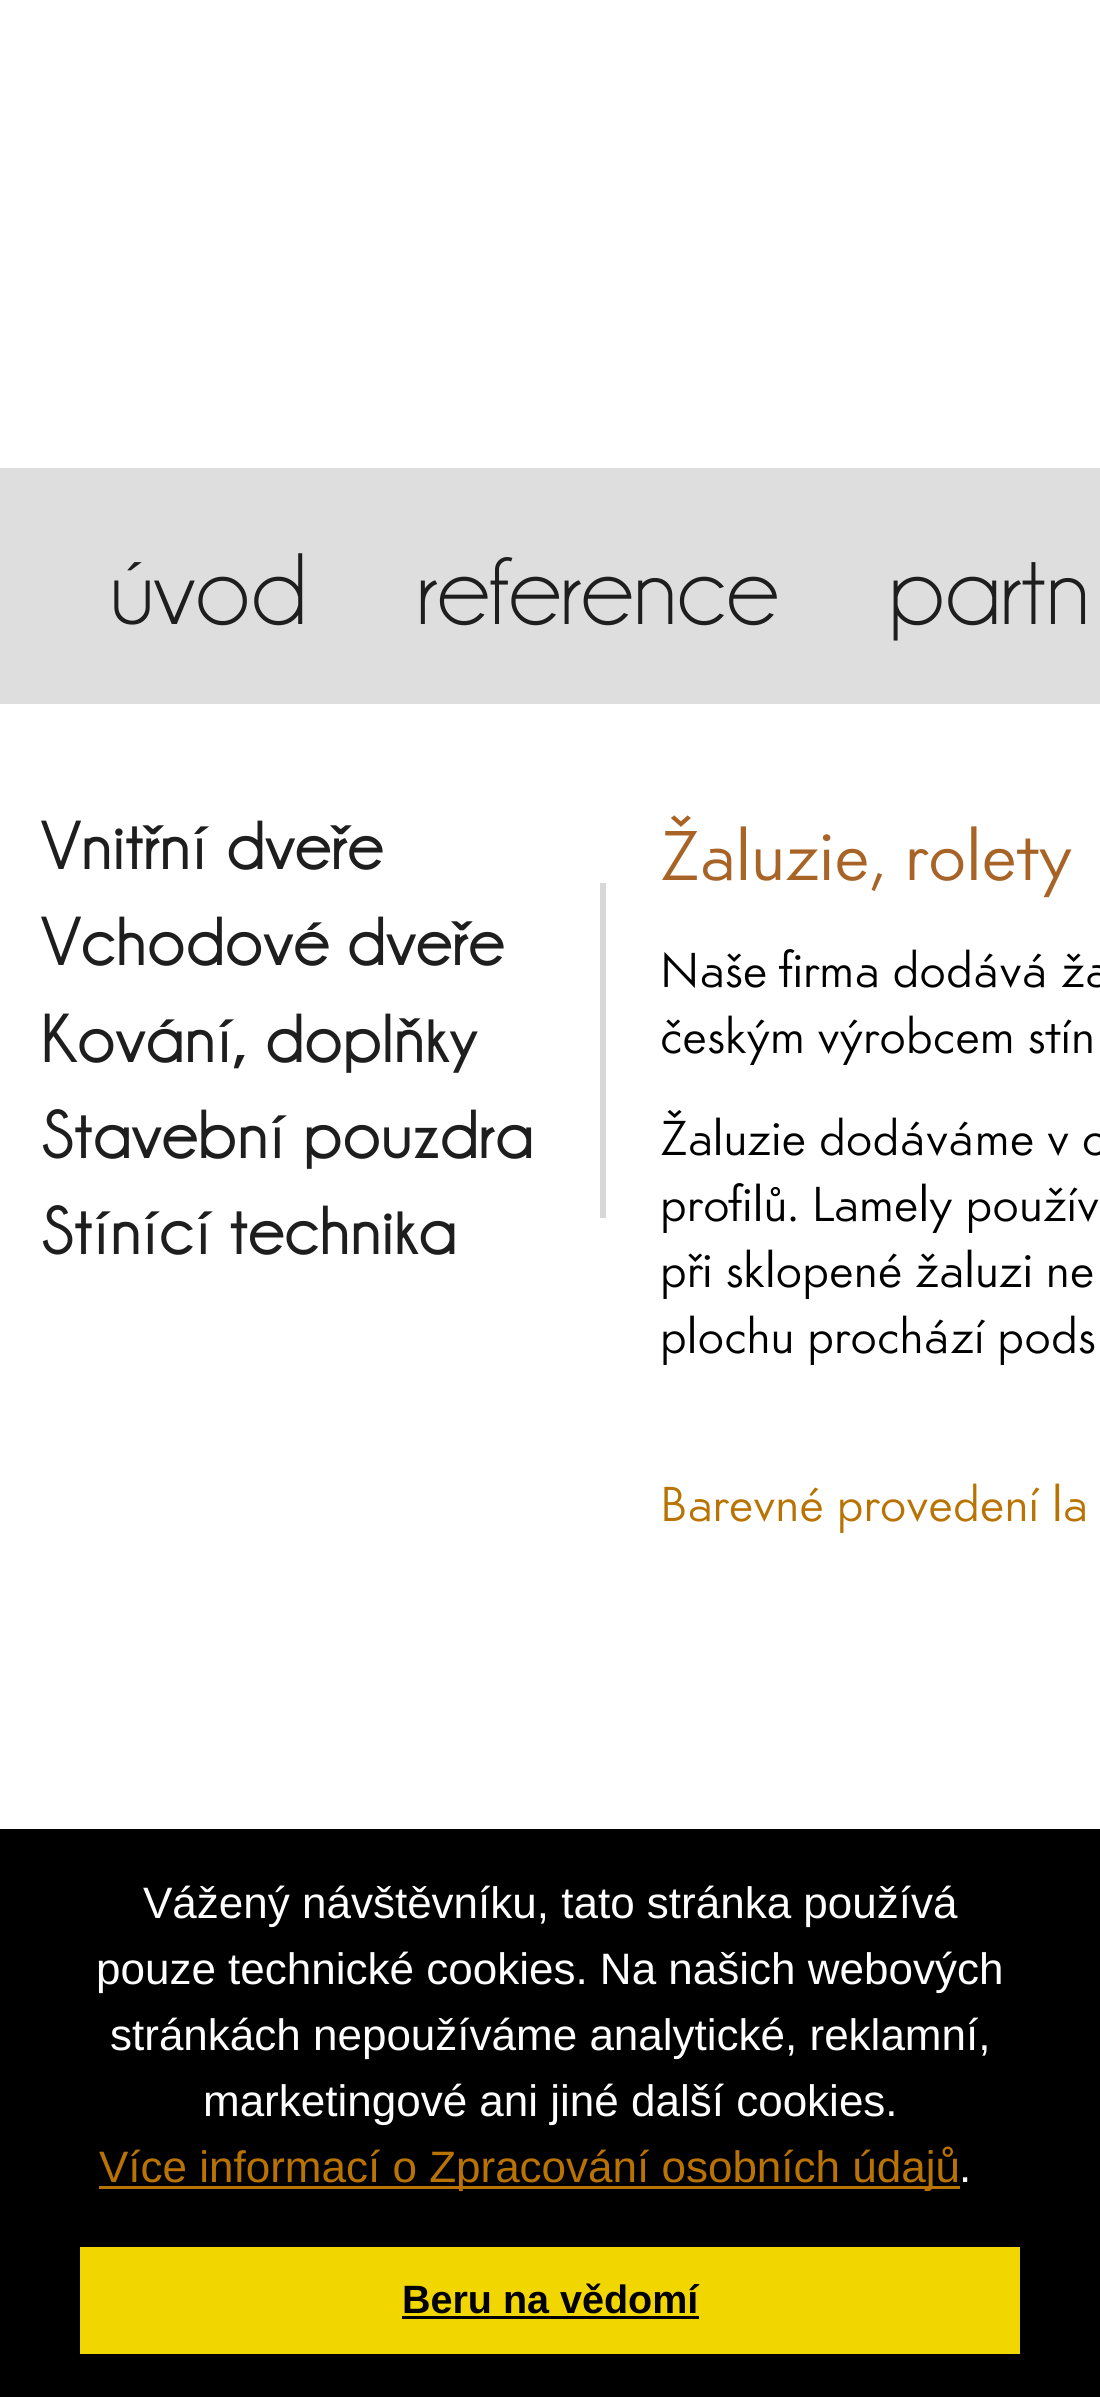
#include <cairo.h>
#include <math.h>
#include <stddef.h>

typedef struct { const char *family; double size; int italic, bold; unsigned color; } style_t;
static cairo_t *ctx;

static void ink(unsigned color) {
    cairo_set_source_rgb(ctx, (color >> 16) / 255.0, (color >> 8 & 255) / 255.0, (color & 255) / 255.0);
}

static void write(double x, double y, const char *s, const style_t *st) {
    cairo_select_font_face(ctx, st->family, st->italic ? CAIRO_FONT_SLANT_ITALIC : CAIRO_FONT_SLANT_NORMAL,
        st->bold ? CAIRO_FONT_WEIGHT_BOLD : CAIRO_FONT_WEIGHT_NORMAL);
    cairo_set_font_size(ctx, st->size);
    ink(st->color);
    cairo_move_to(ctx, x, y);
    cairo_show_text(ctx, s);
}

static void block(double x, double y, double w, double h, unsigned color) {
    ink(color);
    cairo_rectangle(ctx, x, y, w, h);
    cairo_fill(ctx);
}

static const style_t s1 = {"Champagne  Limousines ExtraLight", 102.5, 0, 0, 0x1e1e1e};
static const style_t s2 = {"Champagne  Limousines", 69.75, 0, 1, 0x1e1e1e};
static const style_t s3 = {"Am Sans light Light", 73.5, 0, 0, 0xa86427};
static const style_t s4 = {"Am Sans light Light", 51.25, 0, 0, 0x000000};
static const style_t s5 = {"Am Sans light Light", 51.25, 0, 0, 0xb97303};
static const style_t s6 = {"Liberation Sans", 44, 0, 0, 0xffffff};
static const style_t s7 = {"Liberation Sans", 44, 0, 0, 0xb97303};
static const style_t s8 = {"Liberation Sans", 39.5, 0, 1, 0x000000};

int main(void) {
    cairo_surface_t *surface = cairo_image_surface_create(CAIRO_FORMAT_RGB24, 1100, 2397);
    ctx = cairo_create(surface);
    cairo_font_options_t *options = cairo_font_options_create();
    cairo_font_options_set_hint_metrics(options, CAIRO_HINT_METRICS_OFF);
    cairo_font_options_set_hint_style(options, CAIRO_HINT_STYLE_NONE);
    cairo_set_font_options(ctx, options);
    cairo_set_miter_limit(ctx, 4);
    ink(0xffffff);
    cairo_paint(ctx);
    block(0, 468, 1100, 236, 0xdedede);
    write(110, 624, "úvod", &s1);
    write(417, 624, "reference", &s1);
    write(889, 624, "partn", &s1);
    write(41, 869, "Vnitřní dveře", &s2);
    block(600, 883, 6, 335, 0xd8d8d8);
    write(41, 965, "Vchodové dveře", &s2);
    write(41, 1062, "Kování, doplňky", &s2);
    write(41, 1158, "Stavební pouzdra", &s2);
    write(41, 1254, "Stínící technika", &s2);
    write(660, 880, "Žaluzie, rolety", &s3);
    write(660, 987, "Naše firma dodává ža", &s4);
    write(660, 1053, "českým výrobcem stín", &s4);
    write(660, 1155, "Žaluzie dodáváme v c", &s4);
    write(660, 1221, "profilů. Lamely použív", &s4);
    write(660, 1287, "při sklopené žaluzi ne", &s4);
    write(660, 1353, "plochu prochází pods", &s4);
    write(660, 1521, "Barevné provedení la", &s5);
    block(0, 1829, 1100, 568, 0x000000);
    write(143, 1918, "Vážený návštěvníku, tato stránka používá", &s6);
    write(96, 1984, "pouze technické cookies. Na našich webových", &s6);
    write(110, 2050, "stránkách nepoužíváme analytické, reklamní,", &s6);
    write(203, 2116, "marketingové ani jiné další cookies.", &s6);
    block(99, 2186, 861, 3, 0xb97303);
    write(99, 2182, "Více informací o Zpracování osobních údajů", &s7);
    write(959, 2182, ".", &s6);
    block(80, 2247, 940, 107, 0xf1d600);
    write(402, 2313, "Beru na vědomí", &s8);
    block(402, 2316, 297, 3, 0x000000);
    cairo_surface_write_to_png(surface, "screenshot.png");
    cairo_font_options_destroy(options);
    cairo_destroy(ctx);
    cairo_surface_destroy(surface);
    return 0;
}
